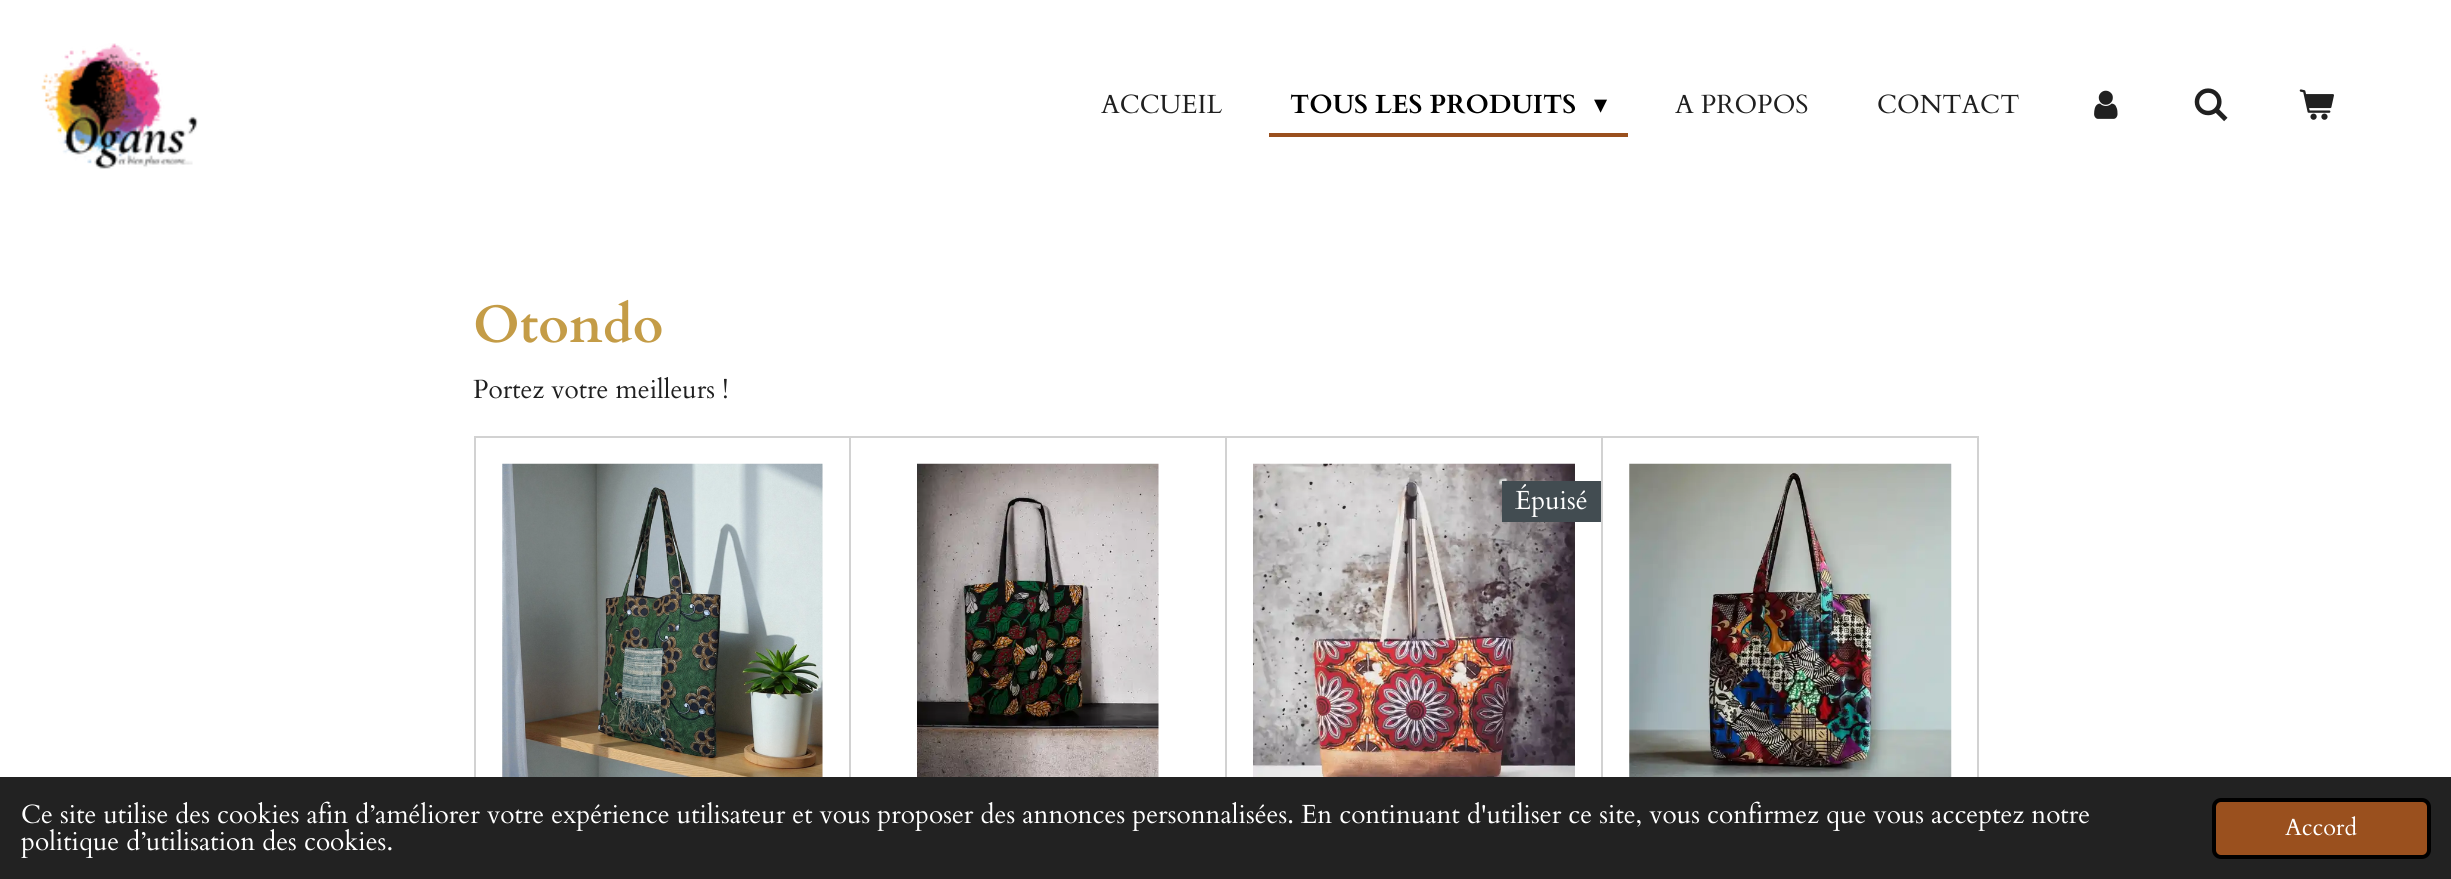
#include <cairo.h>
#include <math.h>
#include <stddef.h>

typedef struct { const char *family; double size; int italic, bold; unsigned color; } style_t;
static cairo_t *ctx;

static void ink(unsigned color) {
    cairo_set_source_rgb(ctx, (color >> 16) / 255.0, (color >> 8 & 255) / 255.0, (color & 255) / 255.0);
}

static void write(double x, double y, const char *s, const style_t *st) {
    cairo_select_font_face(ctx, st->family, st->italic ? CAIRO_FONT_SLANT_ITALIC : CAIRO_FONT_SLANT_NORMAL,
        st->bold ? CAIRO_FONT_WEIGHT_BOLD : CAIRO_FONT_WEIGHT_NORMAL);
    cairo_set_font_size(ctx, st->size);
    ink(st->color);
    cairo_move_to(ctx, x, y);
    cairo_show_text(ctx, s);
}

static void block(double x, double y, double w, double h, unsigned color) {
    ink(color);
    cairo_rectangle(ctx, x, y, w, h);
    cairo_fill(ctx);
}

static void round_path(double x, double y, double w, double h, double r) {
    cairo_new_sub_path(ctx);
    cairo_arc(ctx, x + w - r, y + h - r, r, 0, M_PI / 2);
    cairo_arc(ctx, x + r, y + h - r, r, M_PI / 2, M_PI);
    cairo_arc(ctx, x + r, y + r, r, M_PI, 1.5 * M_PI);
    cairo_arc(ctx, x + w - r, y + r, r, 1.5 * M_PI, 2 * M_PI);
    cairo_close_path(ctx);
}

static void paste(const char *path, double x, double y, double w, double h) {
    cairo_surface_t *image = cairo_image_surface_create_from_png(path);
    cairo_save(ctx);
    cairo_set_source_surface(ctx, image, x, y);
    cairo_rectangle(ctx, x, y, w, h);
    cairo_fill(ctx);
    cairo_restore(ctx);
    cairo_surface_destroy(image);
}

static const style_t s1 = {"Cardo", 26.25, 0, 0, 0x202020};
static const style_t s2 = {"Cardo", 26.25, 0, 1, 0x000000};
static const style_t s3 = {"DejaVu Sans", 26.25, 0, 0, 0x000000};
static const style_t s4 = {"Cardo", 52.5, 0, 1, 0xc49c47};
static const style_t s5 = {"Cardo", 26.25, 0, 0, 0xffffff};
static const style_t s6 = {"Cardo", 23.5, 0, 0, 0xffffff};

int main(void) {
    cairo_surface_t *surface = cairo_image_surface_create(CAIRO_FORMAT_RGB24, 2451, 879);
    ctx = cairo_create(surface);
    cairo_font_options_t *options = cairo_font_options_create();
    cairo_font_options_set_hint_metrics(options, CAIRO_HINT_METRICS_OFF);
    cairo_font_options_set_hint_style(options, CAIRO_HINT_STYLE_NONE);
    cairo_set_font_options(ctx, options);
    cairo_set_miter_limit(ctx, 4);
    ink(0xffffff);
    cairo_paint(ctx);
    paste("pic1.png", 41, 43, 157, 126);
    write(1101, 113, "ACCUEIL", &s1);
    ink(0x9a501e);
    cairo_new_path(ctx);
    cairo_move_to(ctx, 1269, 133);
    cairo_line_to(ctx, 1269, 137);
    cairo_line_to(ctx, 1628, 137);
    cairo_line_to(ctx, 1628, 81);
    cairo_line_to(ctx, 1628, 133);
    cairo_close_path(ctx);
    cairo_fill(ctx);
    write(1290, 113, "TOUS LES PRODUITS", &s2);
    write(1594, 113, "▾", &s3);
    write(1675, 113, "A PROPOS", &s1);
    write(1877, 113, "CONTACT", &s1);
    paste("pic2.png", 2094, 90, 24, 29);
    paste("pic3.png", 2194, 88, 34, 34);
    paste("pic4.png", 2299, 89, 35, 31);
    write(473, 342, "Otondo", &s4);
    write(473, 398, "Portez votre meilleurs !", &s1);
    cairo_rectangle(ctx, 475, 437, 375, 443);
    ink(0xd2d2d2);
    cairo_stroke(ctx);
    paste("pic5.png", 502, 463, 321, 314);
    cairo_rectangle(ctx, 850, 437, 376, 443);
    cairo_stroke(ctx);
    paste("pic6.png", 917, 463, 242, 314);
    cairo_rectangle(ctx, 1226, 437, 376, 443);
    cairo_stroke(ctx);
    paste("pic7.png", 1253, 463, 322, 314);
    block(1502, 481, 99, 41, 0x424c51);
    write(1515, 509, "Épuisé", &s5);
    cairo_rectangle(ctx, 1602, 437, 376, 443);
    ink(0xd2d2d2);
    cairo_stroke(ctx);
    paste("pic8.png", 1629, 463, 323, 314);
    block(0, 777, 2451, 102, 0x222222);
    write(21, 823, "Ce site utilise des cookies afin d’améliorer votre expérience utilisateur et vous proposer des annonces personnalisées. En continuant d'utiliser ce site, vous confirmez que vous acceptez notre", &s5);
    write(21, 850, "politique d’utilisation des cookies.", &s5);
    ink(0x9a501e);
    round_path(2214, 800, 215, 57, 7);
    cairo_fill_preserve(ctx);
    ink(0x000000);
    cairo_set_line_width(ctx, 4);
    cairo_stroke(ctx);
    write(2285, 835, "Accord", &s6);
    cairo_surface_write_to_png(surface, "screenshot.png");
    cairo_font_options_destroy(options);
    cairo_destroy(ctx);
    cairo_surface_destroy(surface);
    return 0;
}
